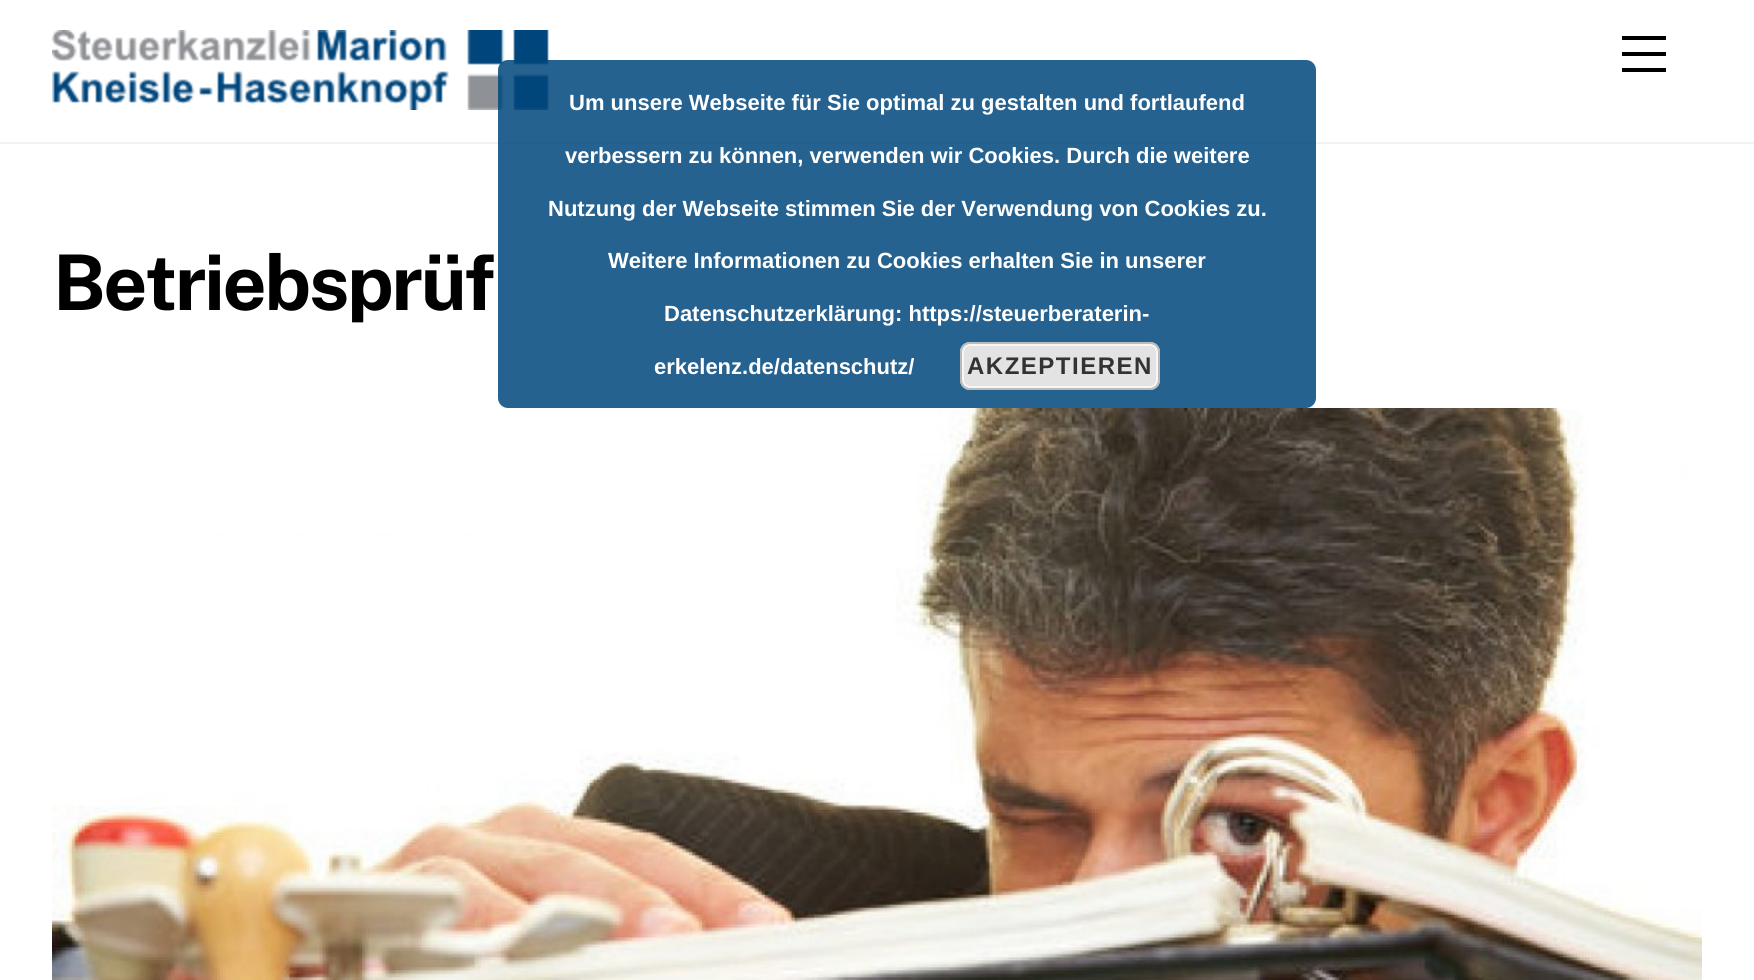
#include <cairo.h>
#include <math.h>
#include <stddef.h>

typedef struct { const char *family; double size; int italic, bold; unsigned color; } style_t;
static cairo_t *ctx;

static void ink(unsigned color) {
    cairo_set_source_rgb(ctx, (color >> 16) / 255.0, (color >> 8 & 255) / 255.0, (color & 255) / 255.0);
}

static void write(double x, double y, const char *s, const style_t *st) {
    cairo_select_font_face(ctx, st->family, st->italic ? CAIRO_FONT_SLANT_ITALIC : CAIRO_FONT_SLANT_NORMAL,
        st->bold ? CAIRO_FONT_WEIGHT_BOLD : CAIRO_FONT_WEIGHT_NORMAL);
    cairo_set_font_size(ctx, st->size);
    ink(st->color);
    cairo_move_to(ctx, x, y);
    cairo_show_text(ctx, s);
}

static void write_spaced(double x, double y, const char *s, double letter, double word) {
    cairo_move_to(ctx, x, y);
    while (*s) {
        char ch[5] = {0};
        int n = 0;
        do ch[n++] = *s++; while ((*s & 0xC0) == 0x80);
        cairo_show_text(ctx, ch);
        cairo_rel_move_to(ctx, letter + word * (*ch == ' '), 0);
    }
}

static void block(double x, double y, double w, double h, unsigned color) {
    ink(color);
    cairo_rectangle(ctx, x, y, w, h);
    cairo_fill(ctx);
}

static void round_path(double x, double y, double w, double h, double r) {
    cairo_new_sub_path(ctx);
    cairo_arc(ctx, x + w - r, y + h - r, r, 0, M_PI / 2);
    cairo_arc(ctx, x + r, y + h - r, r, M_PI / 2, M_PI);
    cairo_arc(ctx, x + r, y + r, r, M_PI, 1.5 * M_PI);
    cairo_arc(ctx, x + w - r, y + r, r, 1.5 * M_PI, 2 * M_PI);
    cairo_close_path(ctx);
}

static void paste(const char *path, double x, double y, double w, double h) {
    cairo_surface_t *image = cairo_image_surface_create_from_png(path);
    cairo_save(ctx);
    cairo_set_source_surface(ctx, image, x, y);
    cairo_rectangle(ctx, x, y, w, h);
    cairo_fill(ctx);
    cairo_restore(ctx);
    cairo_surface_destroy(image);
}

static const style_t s1 = {"Liberation Sans", 22, 0, 1, 0xffffff};

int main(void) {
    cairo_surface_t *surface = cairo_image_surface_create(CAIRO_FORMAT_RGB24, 1754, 980);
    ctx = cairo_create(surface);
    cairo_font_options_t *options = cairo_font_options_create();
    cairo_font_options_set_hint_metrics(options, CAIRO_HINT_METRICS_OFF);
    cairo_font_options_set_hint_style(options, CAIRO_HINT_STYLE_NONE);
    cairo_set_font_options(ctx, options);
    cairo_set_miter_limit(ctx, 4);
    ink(0xffffff);
    cairo_paint(ctx);
    block(0, 142, 1754, 2, 0xf2f2f2);
    paste("pic1.png", 52, 30, 497, 80);
    block(1622, 68, 44, 4, 0x000000);
    block(1622, 36, 44, 4, 0x000000);
    block(1622, 52, 44, 4, 0x000000);
    cairo_select_font_face(ctx, "Public Sans", CAIRO_FONT_SLANT_NORMAL, CAIRO_FONT_WEIGHT_BOLD);
    cairo_set_font_size(ctx, 76.75);
    write_spaced(53, 310, "Betriebsprüf", -2.25, 0);
    paste("pic2.png", 52, 408, 1650, 572);
    cairo_set_source_rgba(ctx, 0, 0.278, 0.486, 0.85);
    round_path(498, 60, 818, 348, 10);
    cairo_fill(ctx);
    write(569, 110, "Um unsere Webseite für Sie optimal zu gestalten und fortlaufend", &s1);
    write(565, 163, "verbessern zu können, verwenden wir Cookies. Durch die weitere", &s1);
    write(548, 216, "Nutzung der Webseite stimmen Sie der Verwendung von Cookies zu.", &s1);
    write(608, 268, "Weitere Informationen zu Cookies erhalten Sie in unserer", &s1);
    write(664, 321, "Datenschutzerklärung: https://steuerberaterin-", &s1);
    write(654, 374, "erkelenz.de/datenschutz/", &s1);
    ink(0xe3e3e3);
    round_path(960, 342, 200, 48, 10);
    cairo_fill(ctx);
    round_path(963, 345, 194, 42, 7);
    ink(0xf6f6f6);
    cairo_stroke(ctx);
    round_path(961, 343, 198, 46, 9);
    ink(0xbbbbbb);
    cairo_stroke(ctx);
    cairo_set_font_size(ctx, 24);
    ink(0x333333);
    write_spaced(967, 374, "AKZEPTIEREN", 1.5, 0);
    cairo_surface_write_to_png(surface, "screenshot.png");
    cairo_font_options_destroy(options);
    cairo_destroy(ctx);
    cairo_surface_destroy(surface);
    return 0;
}
